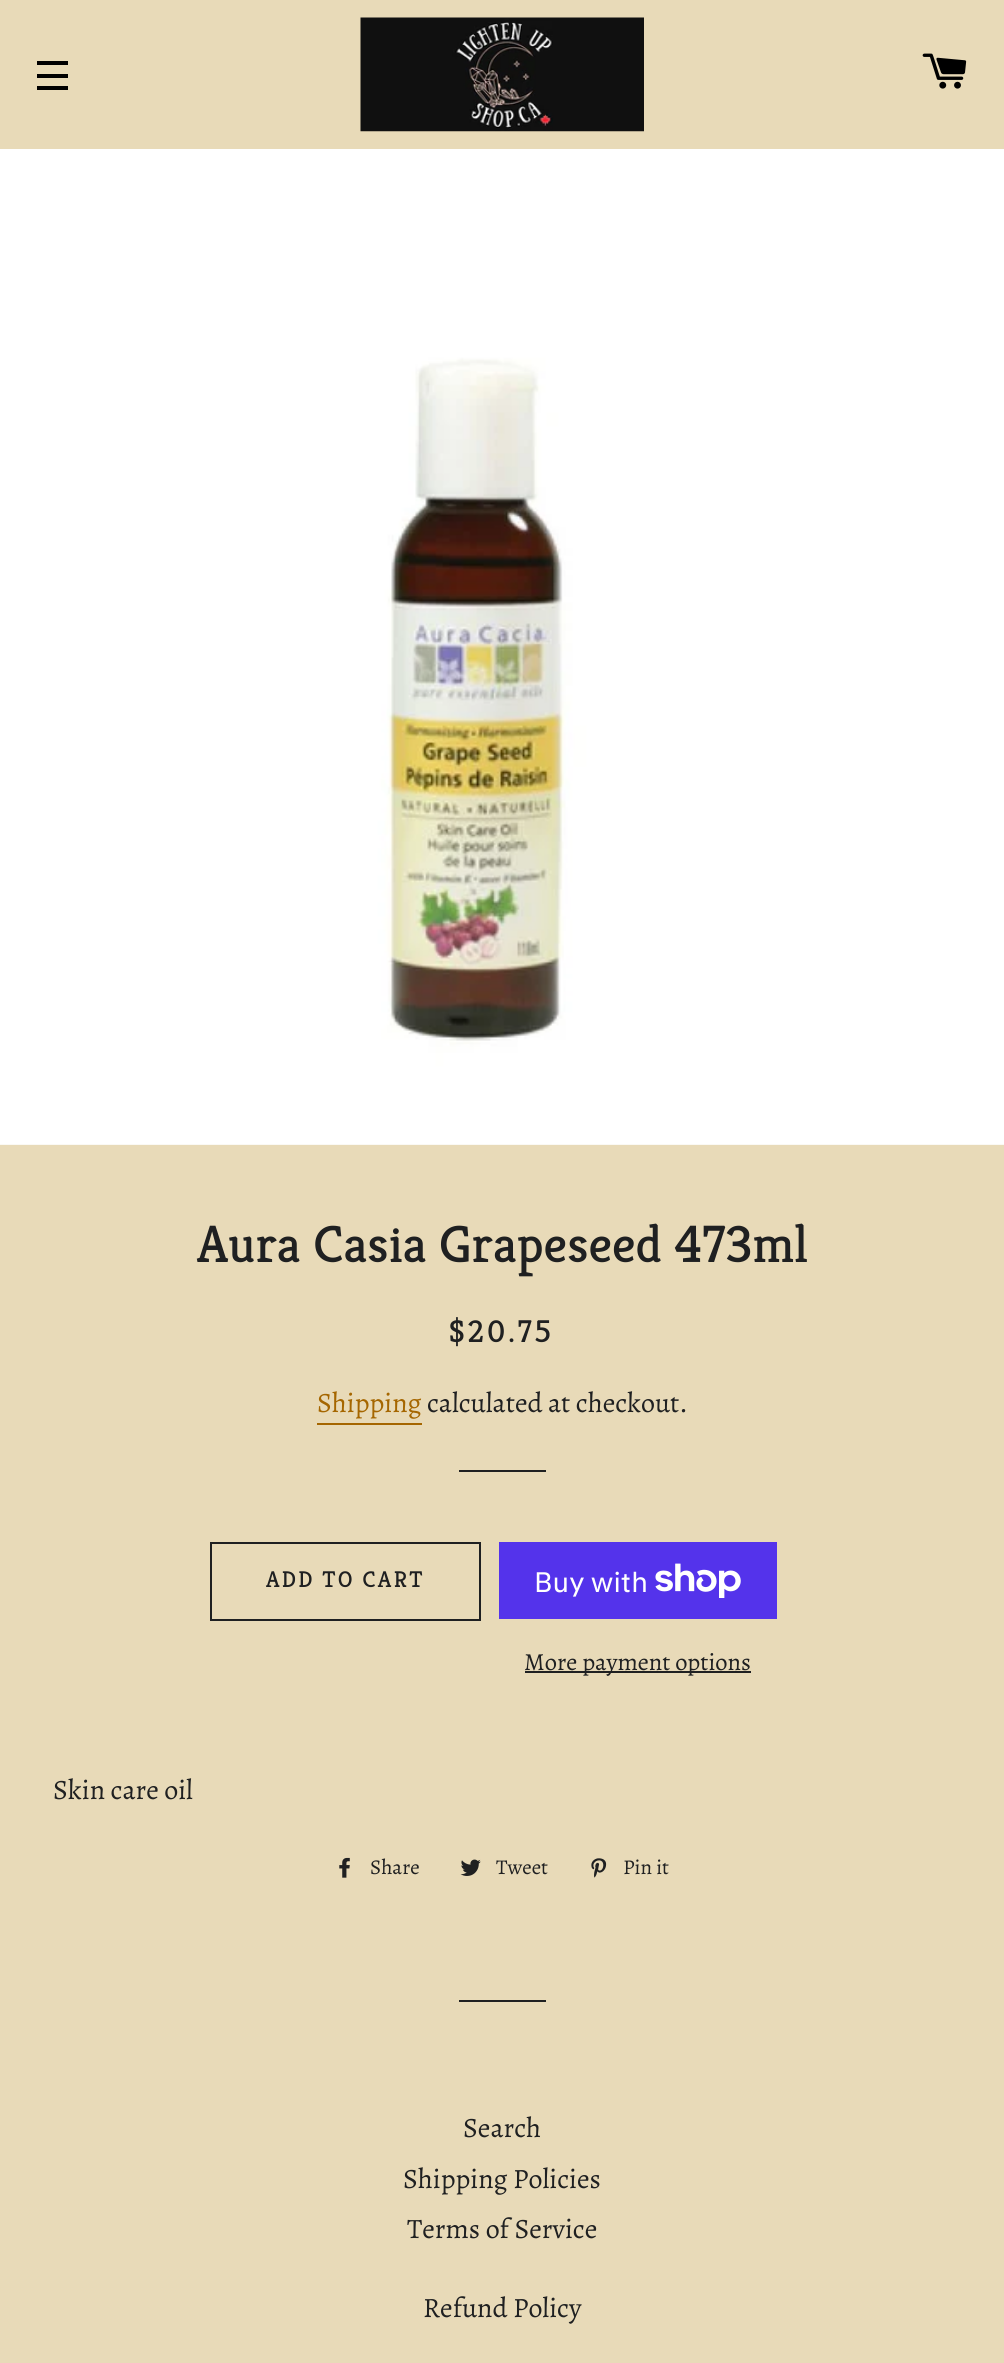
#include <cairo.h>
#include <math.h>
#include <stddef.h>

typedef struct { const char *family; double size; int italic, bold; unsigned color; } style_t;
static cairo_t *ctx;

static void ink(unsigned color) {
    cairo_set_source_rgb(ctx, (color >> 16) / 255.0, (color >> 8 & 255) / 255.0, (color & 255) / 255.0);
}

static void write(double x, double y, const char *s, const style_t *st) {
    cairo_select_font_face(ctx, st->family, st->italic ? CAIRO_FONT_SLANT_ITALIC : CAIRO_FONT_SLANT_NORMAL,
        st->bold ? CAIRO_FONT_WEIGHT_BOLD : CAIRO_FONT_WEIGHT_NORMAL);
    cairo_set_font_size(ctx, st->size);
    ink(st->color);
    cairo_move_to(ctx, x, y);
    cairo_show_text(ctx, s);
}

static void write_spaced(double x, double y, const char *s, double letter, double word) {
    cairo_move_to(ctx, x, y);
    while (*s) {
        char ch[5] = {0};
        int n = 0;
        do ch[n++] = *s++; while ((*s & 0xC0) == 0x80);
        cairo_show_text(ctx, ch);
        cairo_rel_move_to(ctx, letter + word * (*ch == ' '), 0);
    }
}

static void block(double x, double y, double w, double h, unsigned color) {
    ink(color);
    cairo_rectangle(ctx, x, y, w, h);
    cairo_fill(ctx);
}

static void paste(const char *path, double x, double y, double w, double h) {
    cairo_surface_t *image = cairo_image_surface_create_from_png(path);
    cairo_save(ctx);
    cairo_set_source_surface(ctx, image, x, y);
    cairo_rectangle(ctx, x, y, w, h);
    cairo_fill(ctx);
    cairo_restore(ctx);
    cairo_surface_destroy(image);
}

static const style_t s1 = {"Kreon", 52.5, 0, 0, 0x1f2021};
static const style_t s2 = {"Alegreya", 28, 0, 0, 0xa56600};
static const style_t s3 = {"Alegreya", 28, 0, 0, 0x1f2021};
static const style_t s4 = {"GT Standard", 28, 0, 0, 0xffffff};
static const style_t s5 = {"Alegreya", 24.5, 0, 0, 0x1f2021};
static const style_t s6 = {"Alegreya", 21, 0, 0, 0x1f2021};

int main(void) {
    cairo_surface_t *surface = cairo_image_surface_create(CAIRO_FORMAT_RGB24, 1004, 2363);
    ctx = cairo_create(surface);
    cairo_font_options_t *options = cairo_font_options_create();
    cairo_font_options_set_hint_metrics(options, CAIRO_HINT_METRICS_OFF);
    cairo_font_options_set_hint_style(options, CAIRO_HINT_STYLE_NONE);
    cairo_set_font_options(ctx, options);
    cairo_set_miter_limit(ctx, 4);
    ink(0xe8dab8);
    cairo_paint(ctx);
    block(37, 61, 31, 4, 0x000000);
    block(37, 74, 31, 4, 0x000000);
    block(37, 86, 31, 4, 0x000000);
    paste("pic1.png", 360, 17, 284, 115);
    paste("pic2.png", 922, 53, 45, 36);
    block(0, 1144, 1004, 1, 0xf5f2e8);
    paste("pic3.png", 0, 149, 1004, 996);
    write(197, 1262, "Aura Casia Grapeseed 473ml", &s1);
    cairo_set_font_size(ctx, 31.5);
    write_spaced(449, 1342, "$20.75", 3, 0);
    write(317, 1412, "Shipping", &s2);
    block(317, 1423, 105, 2, 0xa56600);
    write(427, 1412, "calculated at checkout.", &s3);
    block(459, 1470, 87, 2, 0x1f2021);
    cairo_rectangle(ctx, 211, 1543, 269, 77);
    cairo_stroke(ctx);
    cairo_select_font_face(ctx, "Kreon", CAIRO_FONT_SLANT_NORMAL, CAIRO_FONT_WEIGHT_NORMAL);
    cairo_set_font_size(ctx, 22.75);
    write_spaced(266, 1587, "ADD TO CART", 2.25, 0);
    block(499, 1542, 278, 77, 0x5433eb);
    write(534, 1592, "Buy with", &s4);
    paste("pic4.png", 655, 1563, 86, 35);
    block(525, 1671, 226, 2, 0x1f2021);
    write(524, 1670, "More payment options", &s5);
    write(53, 1799, "Skin care oil", &s3);
    paste("pic5.png", 339, 1857, 11, 21);
    write(370, 1874, "Share", &s6);
    paste("pic6.png", 460, 1859, 21, 17);
    write(496, 1874, "Tweet", &s6);
    paste("pic7.png", 591, 1858, 16, 20);
    write(623, 1874, "Pin it", &s6);
    block(459, 2000, 87, 2, 0x1f2021);
    write(463, 2137, "Search", &s3);
    write(403, 2188, "Shipping Policies", &s3);
    write(407, 2238, "Terms of Service", &s3);
    write(423, 2317, "Refund Policy", &s3);
    cairo_surface_write_to_png(surface, "screenshot.png");
    cairo_font_options_destroy(options);
    cairo_destroy(ctx);
    cairo_surface_destroy(surface);
    return 0;
}
